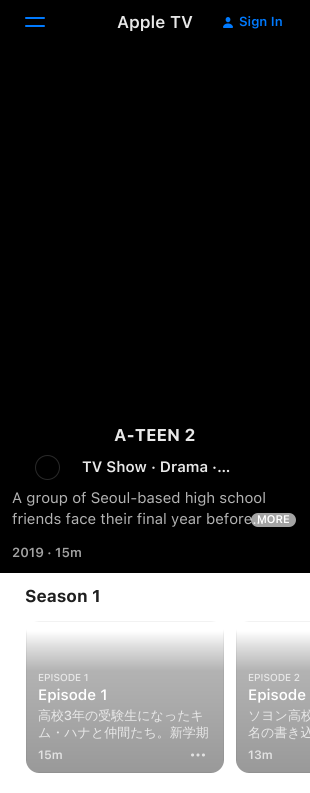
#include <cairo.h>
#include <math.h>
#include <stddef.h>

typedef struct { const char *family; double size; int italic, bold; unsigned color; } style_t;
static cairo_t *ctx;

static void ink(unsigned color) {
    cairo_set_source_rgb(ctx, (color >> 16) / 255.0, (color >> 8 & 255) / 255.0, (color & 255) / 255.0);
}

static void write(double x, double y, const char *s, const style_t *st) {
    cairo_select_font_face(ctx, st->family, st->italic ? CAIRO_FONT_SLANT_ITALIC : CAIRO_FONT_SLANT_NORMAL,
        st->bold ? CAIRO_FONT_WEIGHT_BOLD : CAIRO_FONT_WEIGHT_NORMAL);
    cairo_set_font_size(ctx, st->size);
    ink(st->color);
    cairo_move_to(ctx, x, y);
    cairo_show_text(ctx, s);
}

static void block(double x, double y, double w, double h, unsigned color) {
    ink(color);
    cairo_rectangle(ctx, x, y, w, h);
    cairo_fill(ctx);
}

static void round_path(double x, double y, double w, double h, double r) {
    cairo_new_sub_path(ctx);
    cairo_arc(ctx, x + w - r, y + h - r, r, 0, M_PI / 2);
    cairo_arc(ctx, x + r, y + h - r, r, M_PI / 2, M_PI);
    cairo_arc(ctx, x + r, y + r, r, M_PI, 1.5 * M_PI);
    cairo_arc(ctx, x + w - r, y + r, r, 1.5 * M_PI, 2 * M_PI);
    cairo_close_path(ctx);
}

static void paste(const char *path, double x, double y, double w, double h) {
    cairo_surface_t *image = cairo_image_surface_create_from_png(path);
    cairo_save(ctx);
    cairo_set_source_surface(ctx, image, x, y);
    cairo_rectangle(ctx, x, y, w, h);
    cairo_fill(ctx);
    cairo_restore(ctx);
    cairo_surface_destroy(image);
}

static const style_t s1 = {"SF SemiBold", 17, 0, 0, 0xe8e8e8};
static const style_t s2 = {"SF SemiBold", 13, 0, 0, 0x007aff};
static const style_t s3 = {"SF", 17, 0, 1, 0xe8e8e8};
static const style_t s4 = {"SF SemiBold", 15, 0, 0, 0xe8e8e8};
static const style_t s5 = {"SF", 15, 0, 0, 0xb3b3b3};
static const style_t s6 = {"SF SemiBold", 11, 0, 0, 0xffffff};
static const style_t s7 = {"SF SemiBold", 13, 0, 0, 0xa3a3a3};
static const style_t s8 = {"SF", 17, 0, 1, 0x1f1f1f};
static const style_t s9 = {"SF Medium", 10, 0, 0, 0xe8e8e8};
static const style_t s10 = {"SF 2 Medium", 15, 0, 0, 0xffffff};
static const style_t s11 = {"WenQuanYi Zen Hei Medium", 13, 0, 0, 0xe8e8e8};
static const style_t s12 = {"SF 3 Medium", 13, 0, 0, 0xe8e8e8};
static const style_t s13 = {"SF SemiBold", 12, 0, 0, 0xe2e2e2};

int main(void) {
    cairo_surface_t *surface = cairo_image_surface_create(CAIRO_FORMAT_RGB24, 310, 793);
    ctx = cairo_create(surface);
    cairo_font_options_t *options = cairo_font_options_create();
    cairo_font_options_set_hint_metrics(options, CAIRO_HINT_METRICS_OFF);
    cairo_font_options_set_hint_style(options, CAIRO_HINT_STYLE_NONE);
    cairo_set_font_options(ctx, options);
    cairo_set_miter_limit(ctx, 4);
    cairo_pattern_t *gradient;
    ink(0xffffff);
    cairo_paint(ctx);
    block(0, 0, 310, 573, 0x000000);
    ink(0x007aff);
    round_path(25, 17, 20, 2, 1);
    cairo_fill(ctx);
    round_path(25, 25, 20, 2, 1);
    cairo_fill(ctx);
    write(117, 28, "Apple TV", &s1);
    paste("pic1.png", 223, 17, 10, 11);
    write(239, 26, "Sign In", &s2);
    write(114, 441, "A-TEEN 2", &s3);
    cairo_new_path(ctx);
    cairo_arc(ctx, 47.5, 467.5, 12, 0, 2 * M_PI);
    ink(0x292929);
    cairo_set_line_width(ctx, 1);
    cairo_stroke(ctx);
    write(82, 472, "TV Show · Drama ·…", &s4);
    write(12, 503, "A group of Seoul-based high school", &s5);
    write(12, 524, "friends face their final year before…", &s5);
    cairo_set_source_rgba(ctx, 1, 1, 1, 0.64);
    round_path(251, 513, 45, 14, 7);
    cairo_fill(ctx);
    write(257, 523, "MORE", &s6);
    write(12, 557, "2019 · 15m", &s7);
    write(25, 602, "Season 1", &s8);
    ink(0xf2f2f2);
    cairo_set_fill_rule(ctx, CAIRO_FILL_RULE_EVEN_ODD);
    cairo_new_path(ctx);
    cairo_move_to(ctx, 26, 634);
    cairo_line_to(ctx, 26, 760);
    cairo_line_to(ctx, 27, 765);
    cairo_line_to(ctx, 27, 629);
    cairo_close_path(ctx);
    cairo_move_to(ctx, 39, 621);
    cairo_line_to(ctx, 34, 622);
    cairo_line_to(ctx, 216, 622);
    cairo_line_to(ctx, 211, 621);
    cairo_close_path(ctx);
    cairo_move_to(ctx, 224, 634);
    cairo_line_to(ctx, 223, 629);
    cairo_line_to(ctx, 223, 765);
    cairo_line_to(ctx, 224, 760);
    cairo_close_path(ctx);
    cairo_move_to(ctx, 211, 773);
    cairo_line_to(ctx, 216, 772);
    cairo_line_to(ctx, 34, 772);
    cairo_line_to(ctx, 39, 773);
    cairo_close_path(ctx);
    cairo_fill(ctx);
    cairo_save(ctx);
    cairo_set_fill_rule(ctx, CAIRO_FILL_RULE_WINDING);
    round_path(26, 621, 198, 152, 13);
    cairo_clip(ctx);
    gradient = cairo_pattern_create_linear(125, 631, 125, 773);
    cairo_pattern_add_color_stop_rgba(gradient, 0, 0, 0, 0, 0);
    cairo_pattern_add_color_stop_rgba(gradient, 0.11, 0, 0, 0, 0.13);
    cairo_pattern_add_color_stop_rgba(gradient, 0.19, 0, 0, 0, 0.21);
    cairo_pattern_add_color_stop_rgba(gradient, 0.28, 0, 0, 0, 0.3);
    cairo_pattern_add_color_stop_rgba(gradient, 1, 0, 0, 0, 0.4);
    cairo_set_source(ctx, gradient);
    cairo_pattern_destroy(gradient);
    cairo_new_path(ctx);
    cairo_move_to(ctx, 26, 631);
    cairo_line_to(ctx, 224, 631);
    cairo_line_to(ctx, 224, 760);
    cairo_curve_to(ctx, 224, 767, 218, 773, 211, 773);
    cairo_line_to(ctx, 39, 773);
    cairo_curve_to(ctx, 32, 773, 26, 767, 26, 760);
    cairo_close_path(ctx);
    cairo_fill(ctx);
    cairo_restore(ctx);
    write(38, 681, "EPISODE 1", &s9);
    write(38, 700, "Episode 1", &s10);
    write(38, 720, "高校", &s11);
    write(64, 720, "3", &s12);
    write(72, 720, "年の受験生になったキ", &s11);
    write(38, 737, "ム・ハナと仲間たち。新学期", &s11);
    write(38, 759, "15m", &s13);
    paste("pic2.png", 191, 753, 14, 4);
    ink(0xf2f2f2);
    cairo_new_path(ctx);
    cairo_move_to(ctx, 236, 634);
    cairo_line_to(ctx, 236, 760);
    cairo_line_to(ctx, 237, 765);
    cairo_line_to(ctx, 237, 629);
    cairo_close_path(ctx);
    cairo_move_to(ctx, 249, 621);
    cairo_line_to(ctx, 244, 622);
    cairo_line_to(ctx, 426, 622);
    cairo_line_to(ctx, 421, 621);
    cairo_close_path(ctx);
    cairo_move_to(ctx, 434, 634);
    cairo_line_to(ctx, 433, 629);
    cairo_line_to(ctx, 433, 765);
    cairo_line_to(ctx, 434, 760);
    cairo_close_path(ctx);
    cairo_move_to(ctx, 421, 773);
    cairo_line_to(ctx, 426, 772);
    cairo_line_to(ctx, 244, 772);
    cairo_line_to(ctx, 249, 773);
    cairo_close_path(ctx);
    cairo_fill(ctx);
    cairo_save(ctx);
    cairo_set_fill_rule(ctx, CAIRO_FILL_RULE_WINDING);
    round_path(236, 621, 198, 152, 13);
    cairo_clip(ctx);
    gradient = cairo_pattern_create_linear(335, 631, 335, 773);
    cairo_pattern_add_color_stop_rgba(gradient, 0, 0, 0, 0, 0);
    cairo_pattern_add_color_stop_rgba(gradient, 0.11, 0, 0, 0, 0.13);
    cairo_pattern_add_color_stop_rgba(gradient, 0.19, 0, 0, 0, 0.21);
    cairo_pattern_add_color_stop_rgba(gradient, 0.28, 0, 0, 0, 0.3);
    cairo_pattern_add_color_stop_rgba(gradient, 1, 0, 0, 0, 0.4);
    cairo_set_source(ctx, gradient);
    cairo_pattern_destroy(gradient);
    cairo_new_path(ctx);
    cairo_move_to(ctx, 236, 631);
    cairo_line_to(ctx, 310, 631);
    cairo_line_to(ctx, 310, 773);
    cairo_line_to(ctx, 249, 773);
    cairo_curve_to(ctx, 242, 773, 236, 767, 236, 760);
    cairo_close_path(ctx);
    cairo_fill(ctx);
    cairo_restore(ctx);
    write(248, 681, "EPISODE 2", &s9);
    write(248, 700, "Episode", &s10);
    write(248, 720, "ソヨン高校", &s11);
    write(248, 737, "名の書き込", &s11);
    write(248, 759, "13m", &s13);
    cairo_surface_write_to_png(surface, "screenshot.png");
    cairo_font_options_destroy(options);
    cairo_destroy(ctx);
    cairo_surface_destroy(surface);
    return 0;
}
